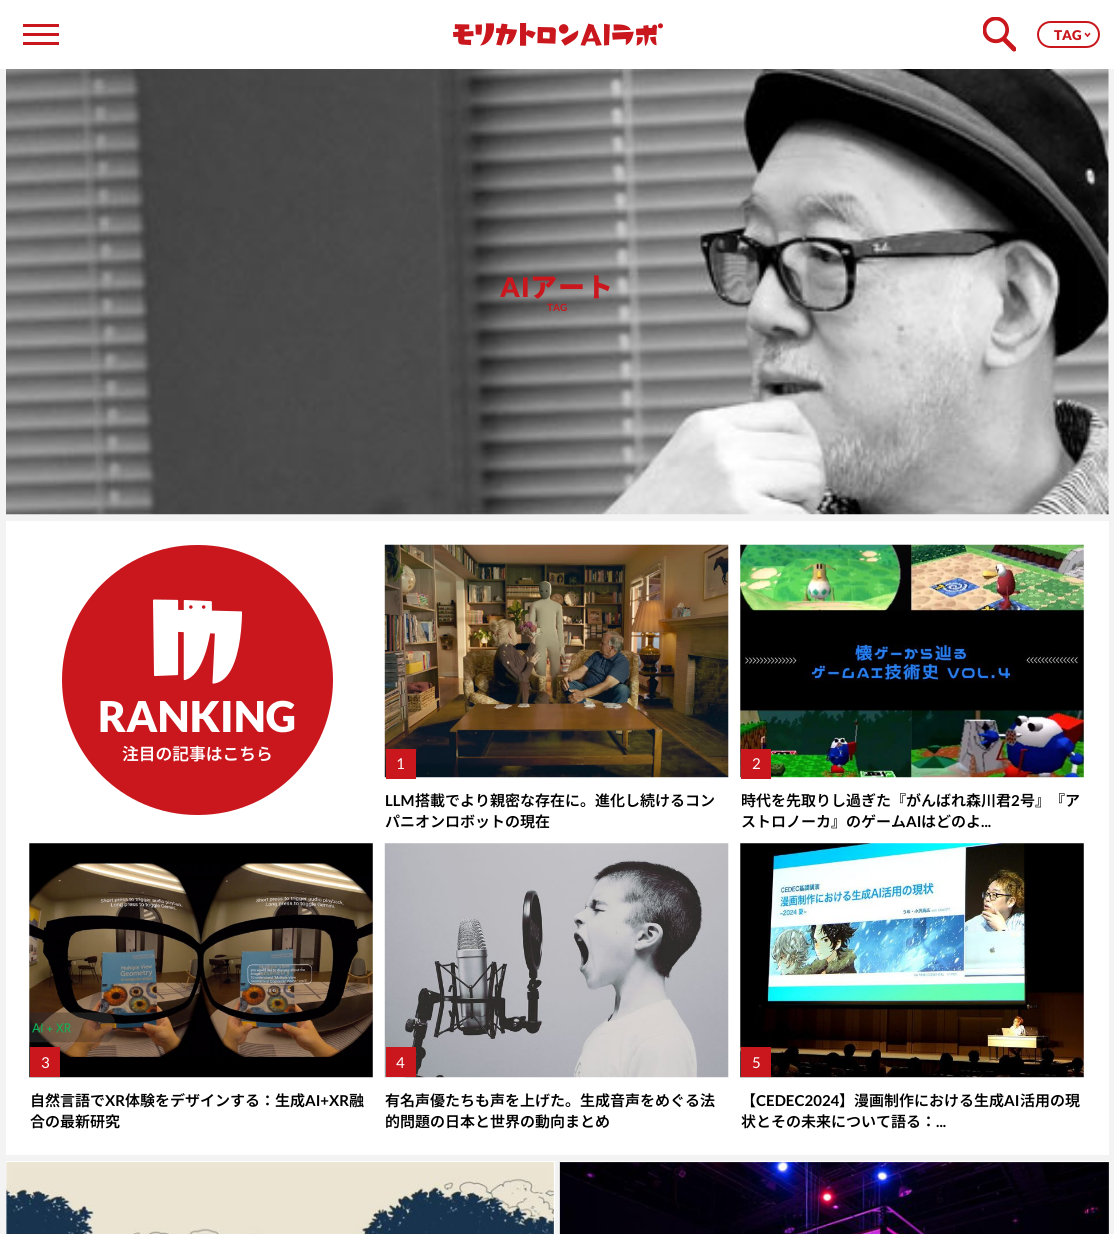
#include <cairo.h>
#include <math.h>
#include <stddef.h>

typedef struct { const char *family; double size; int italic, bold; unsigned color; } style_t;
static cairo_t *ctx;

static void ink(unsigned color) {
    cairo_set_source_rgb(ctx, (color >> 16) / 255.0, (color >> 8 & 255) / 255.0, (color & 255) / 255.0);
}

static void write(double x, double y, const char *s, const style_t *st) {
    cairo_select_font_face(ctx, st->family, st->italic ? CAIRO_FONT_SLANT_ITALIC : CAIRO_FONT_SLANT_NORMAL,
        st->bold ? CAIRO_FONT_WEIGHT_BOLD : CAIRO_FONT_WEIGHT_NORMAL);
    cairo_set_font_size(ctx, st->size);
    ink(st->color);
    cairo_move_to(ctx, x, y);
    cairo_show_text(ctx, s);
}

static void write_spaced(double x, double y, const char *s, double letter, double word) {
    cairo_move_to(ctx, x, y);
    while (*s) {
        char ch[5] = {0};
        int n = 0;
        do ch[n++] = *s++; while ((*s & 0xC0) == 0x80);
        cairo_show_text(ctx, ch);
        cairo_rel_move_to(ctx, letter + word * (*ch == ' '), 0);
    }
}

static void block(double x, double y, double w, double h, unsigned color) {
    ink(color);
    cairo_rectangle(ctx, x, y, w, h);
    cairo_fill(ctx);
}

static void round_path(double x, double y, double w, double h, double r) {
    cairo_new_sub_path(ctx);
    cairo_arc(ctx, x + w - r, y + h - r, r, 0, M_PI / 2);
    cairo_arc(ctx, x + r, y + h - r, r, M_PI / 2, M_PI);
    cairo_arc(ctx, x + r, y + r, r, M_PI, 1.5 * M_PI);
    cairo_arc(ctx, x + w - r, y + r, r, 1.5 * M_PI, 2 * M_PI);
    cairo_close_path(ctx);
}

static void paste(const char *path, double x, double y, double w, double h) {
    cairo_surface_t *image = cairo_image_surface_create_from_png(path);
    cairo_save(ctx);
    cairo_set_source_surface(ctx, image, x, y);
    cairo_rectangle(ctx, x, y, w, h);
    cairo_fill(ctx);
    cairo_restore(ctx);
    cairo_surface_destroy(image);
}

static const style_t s1 = {"Lato Black", 13.5, 0, 0, 0xc9171d};
static const style_t s2 = {"Lato", 10, 0, 1, 0xc9171d};
static const style_t s3 = {"Lato Black", 42.5, 0, 0, 0xffffff};
static const style_t s4 = {"Noto Sans JP SemiBold", 16.75, 0, 0, 0xffffff};
static const style_t s5 = {"Lato", 15, 0, 0, 0xffffff};
static const style_t s6 = {"Lato", 15, 0, 1, 0x000000};
static const style_t s7 = {"Noto Sans JP SemiBold", 15, 0, 0, 0x000000};

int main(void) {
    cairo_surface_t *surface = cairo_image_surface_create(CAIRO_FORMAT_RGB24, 1114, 1234);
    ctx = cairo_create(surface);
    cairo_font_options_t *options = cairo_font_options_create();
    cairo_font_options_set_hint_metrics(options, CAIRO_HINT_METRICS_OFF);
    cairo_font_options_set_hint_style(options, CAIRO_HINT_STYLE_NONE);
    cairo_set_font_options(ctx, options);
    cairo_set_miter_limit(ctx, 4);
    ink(0xf3f3f3);
    cairo_paint(ctx);
    block(0, 0, 1114, 69, 0xffffff);
    paste("pic1.png", 453, 23, 210, 23);
    block(23, 24, 36, 3, 0xc9171d);
    block(23, 33, 36, 3, 0xc9171d);
    block(23, 42, 36, 3, 0xc9171d);
    paste("pic2.png", 983, 17, 33, 35);
    round_path(1038, 22, 61, 25, 12.5);
    cairo_stroke(ctx);
    write(1054, 40, "TAG", &s1);
    cairo_new_path(ctx);
    cairo_move_to(ctx, 1089.5, 32.5);
    cairo_line_to(ctx, 1090.5, 34);
    cairo_line_to(ctx, 1087.5, 37);
    cairo_line_to(ctx, 1086.5, 36);
    cairo_close_path(ctx);
    cairo_fill(ctx);
    cairo_new_path(ctx);
    cairo_move_to(ctx, 1085.5, 32.5);
    cairo_line_to(ctx, 1088.5, 36);
    cairo_line_to(ctx, 1087.5, 37);
    cairo_line_to(ctx, 1084.5, 34);
    cairo_close_path(ctx);
    cairo_fill(ctx);
    paste("pic3.png", 6, 69, 1103, 446);
    cairo_set_font_size(ctx, 27);
    write_spaced(500, 297, "AI", 1, 0);
    cairo_select_font_face(ctx, "Noto Sans JP Black", CAIRO_FONT_SLANT_NORMAL, CAIRO_FONT_WEIGHT_NORMAL);
    write_spaced(530, 297, "アート", 1, 0);
    write(547, 311, "TAG", &s2);
    block(6, 521, 1103, 634, 0xffffff);
    ink(0xc9171d);
    round_path(62, 545, 271, 270, 135);
    cairo_fill(ctx);
    paste("pic4.png", 153, 599, 89, 85);
    write(98, 732, "RANKING", &s3);
    write(122, 760, "注目の記事はこちら", &s4);
    paste("pic5.png", 384, 544, 345, 234);
    block(386, 749, 30, 30, 0xc9171d);
    write(396, 769, "1", &s5);
    write(385, 806, "LLM", &s6);
    write(415, 806, "搭載でより親密な存在に。進化し続けるコン", &s7);
    write(385, 827, "パニオンロボットの現在", &s7);
    paste("pic6.png", 740, 544, 344, 234);
    block(741, 749, 30, 30, 0xc9171d);
    write(752, 769, "2", &s5);
    write(741, 806, "時代を先取りし過ぎた『がんばれ森川君", &s7);
    write(1011, 806, "2", &s6);
    write(1020, 806, "号』『ア", &s7);
    write(741, 827, "ストロノーカ』のゲーム", &s7);
    write(906, 827, "AI", &s6);
    write(921, 827, "はどのよ", &s7);
    write(981, 827, "...", &s6);
    paste("pic7.png", 29, 843, 344, 235);
    block(30, 1047, 30, 30, 0xc9171d);
    write(41, 1068, "3", &s5);
    write(30, 1106, "自然言語で", &s7);
    write(105, 1106, "XR", &s6);
    write(125, 1106, "体験をデザインする：生成", &s7);
    write(305, 1106, "AI+XR", &s6);
    write(349, 1106, "融", &s7);
    write(30, 1127, "合の最新研究", &s7);
    paste("pic8.png", 384, 843, 345, 235);
    block(386, 1047, 30, 30, 0xc9171d);
    write(396, 1068, "4", &s5);
    write(385, 1106, "有名声優たちも声を上げた。生成音声をめぐる法", &s7);
    write(385, 1127, "的問題の日本と世界の動向まとめ", &s7);
    paste("pic9.png", 740, 843, 344, 235);
    block(741, 1047, 30, 30, 0xc9171d);
    write(752, 1068, "5", &s5);
    write(741, 1106, "【", &s7);
    write(756, 1106, "CEDEC2024", &s6);
    write(839, 1106, "】漫画制作における生成", &s7);
    write(1004, 1106, "AI", &s6);
    write(1020, 1106, "活用の現", &s7);
    write(741, 1127, "状とその未来について語る：", &s7);
    write(936, 1127, "...", &s6);
    block(6, 1161, 549, 73, 0xffffff);
    paste("pic10.png", 6, 1162, 548, 72);
    block(561, 1161, 548, 73, 0xffffff);
    paste("pic11.png", 559, 1162, 550, 72);
    cairo_surface_write_to_png(surface, "screenshot.png");
    cairo_font_options_destroy(options);
    cairo_destroy(ctx);
    cairo_surface_destroy(surface);
    return 0;
}
